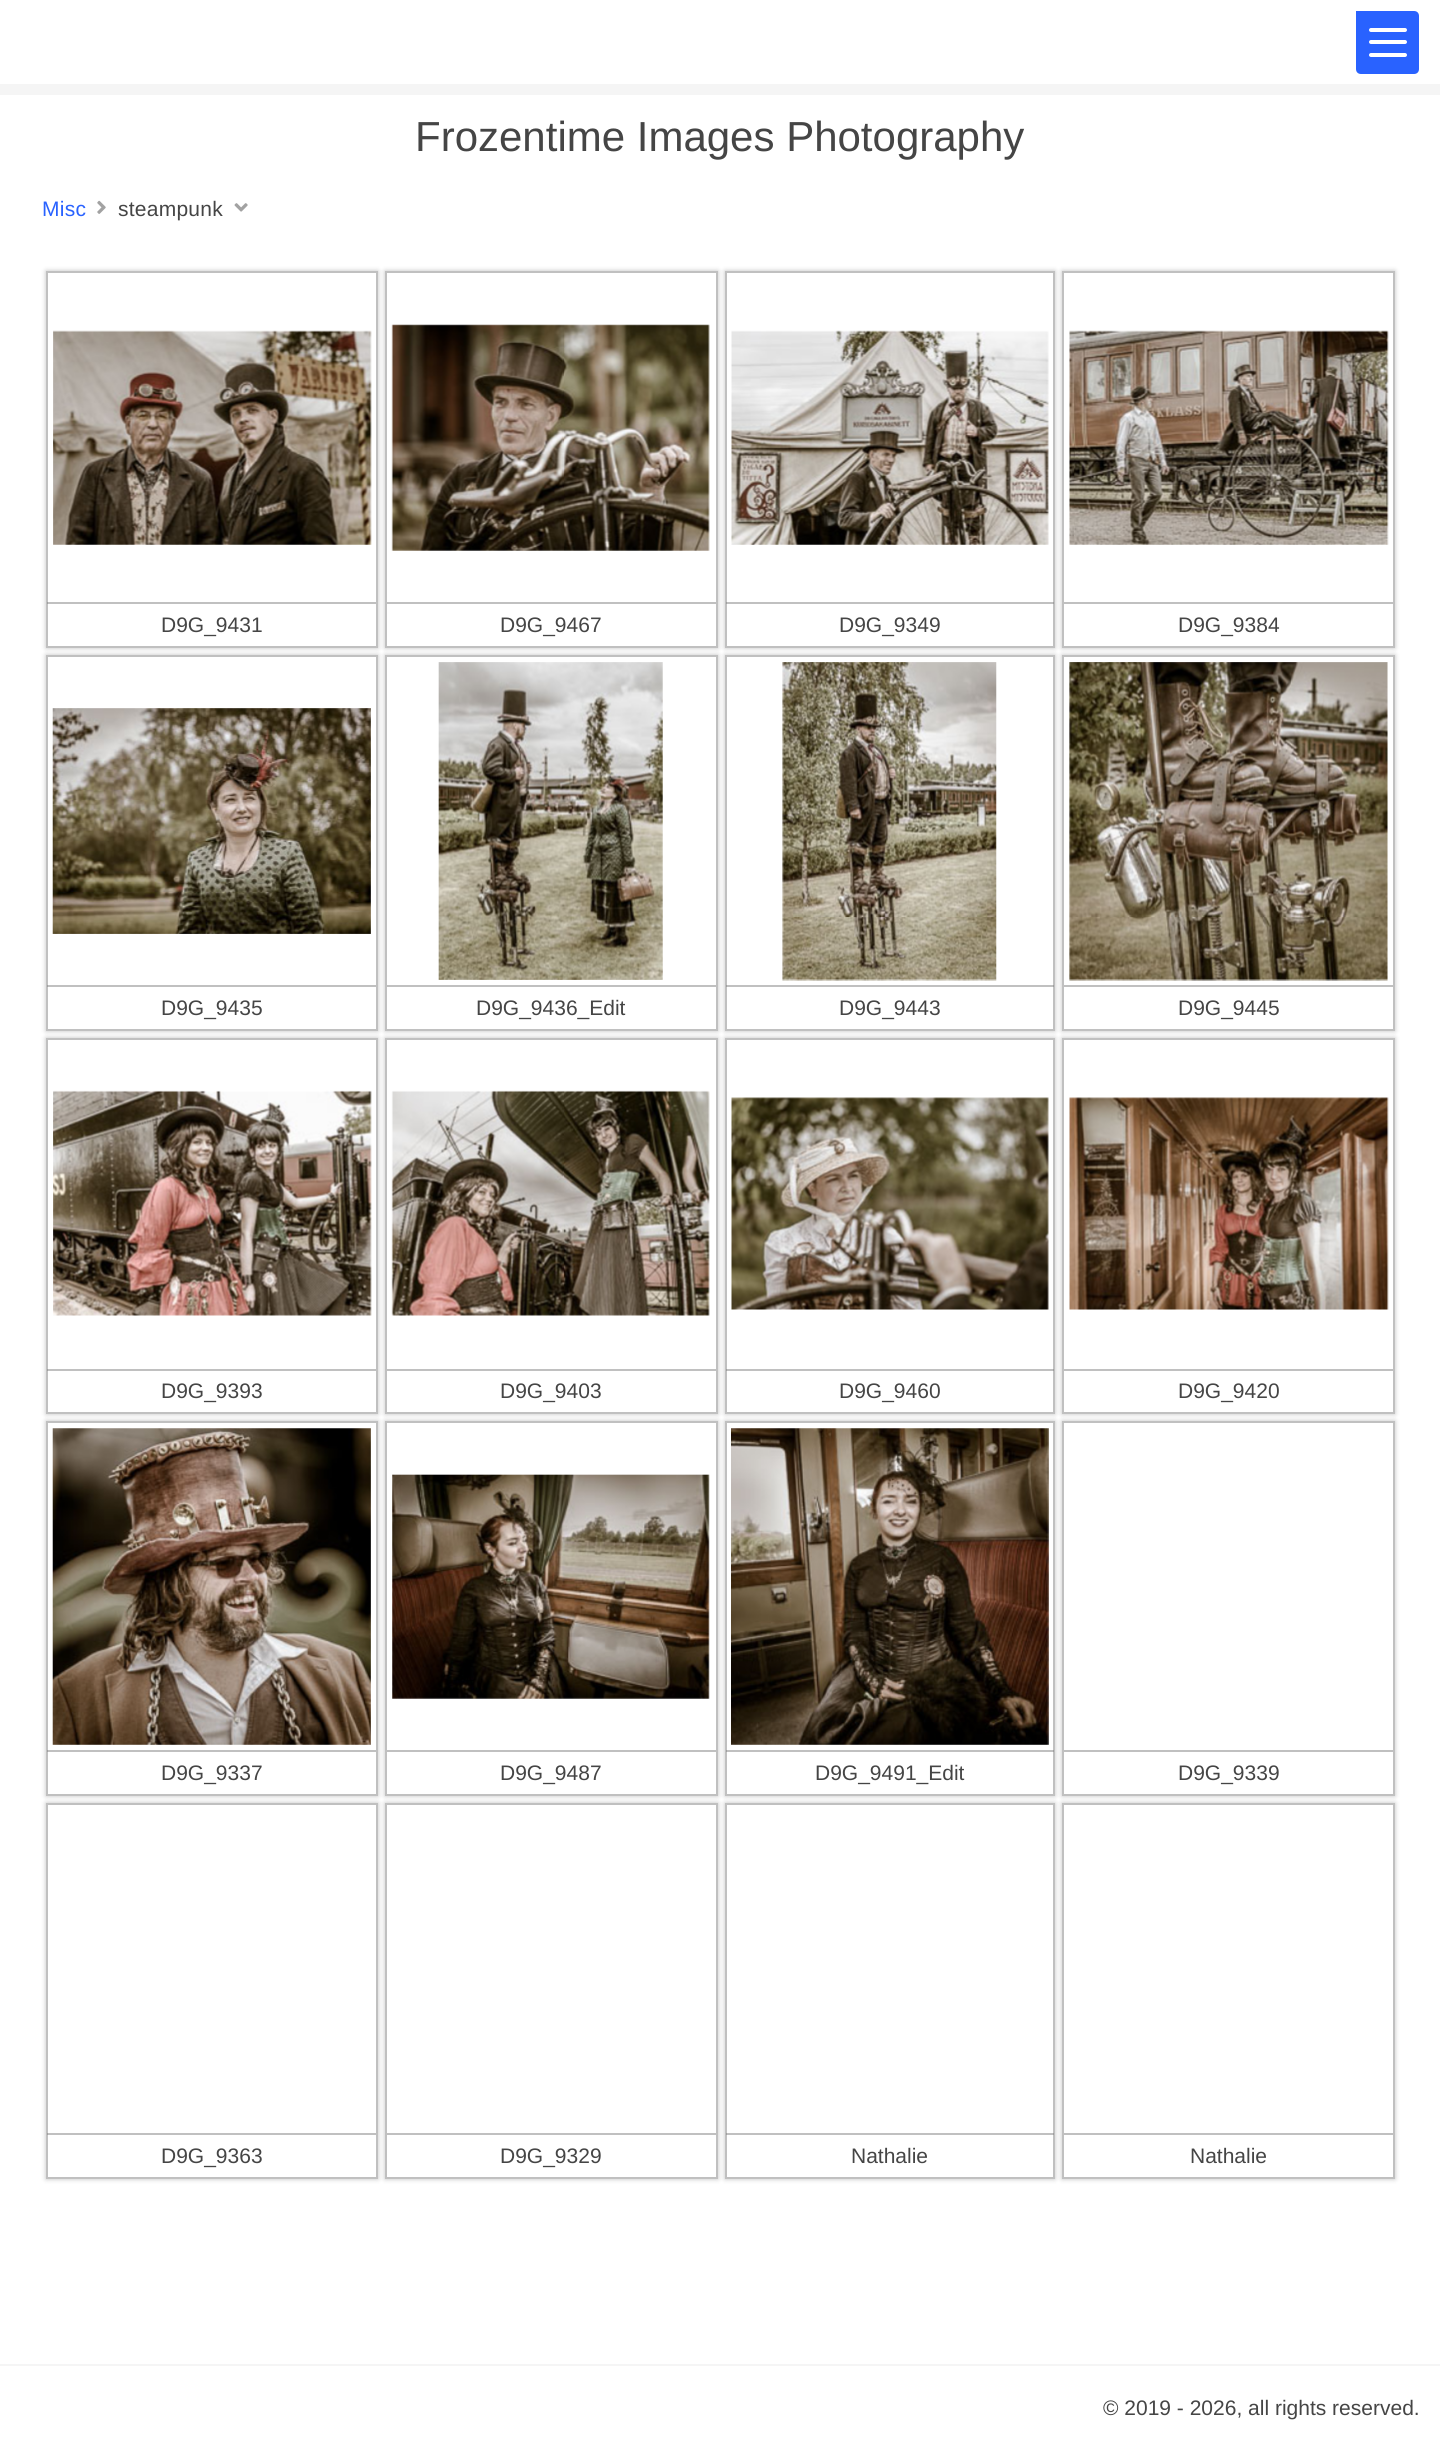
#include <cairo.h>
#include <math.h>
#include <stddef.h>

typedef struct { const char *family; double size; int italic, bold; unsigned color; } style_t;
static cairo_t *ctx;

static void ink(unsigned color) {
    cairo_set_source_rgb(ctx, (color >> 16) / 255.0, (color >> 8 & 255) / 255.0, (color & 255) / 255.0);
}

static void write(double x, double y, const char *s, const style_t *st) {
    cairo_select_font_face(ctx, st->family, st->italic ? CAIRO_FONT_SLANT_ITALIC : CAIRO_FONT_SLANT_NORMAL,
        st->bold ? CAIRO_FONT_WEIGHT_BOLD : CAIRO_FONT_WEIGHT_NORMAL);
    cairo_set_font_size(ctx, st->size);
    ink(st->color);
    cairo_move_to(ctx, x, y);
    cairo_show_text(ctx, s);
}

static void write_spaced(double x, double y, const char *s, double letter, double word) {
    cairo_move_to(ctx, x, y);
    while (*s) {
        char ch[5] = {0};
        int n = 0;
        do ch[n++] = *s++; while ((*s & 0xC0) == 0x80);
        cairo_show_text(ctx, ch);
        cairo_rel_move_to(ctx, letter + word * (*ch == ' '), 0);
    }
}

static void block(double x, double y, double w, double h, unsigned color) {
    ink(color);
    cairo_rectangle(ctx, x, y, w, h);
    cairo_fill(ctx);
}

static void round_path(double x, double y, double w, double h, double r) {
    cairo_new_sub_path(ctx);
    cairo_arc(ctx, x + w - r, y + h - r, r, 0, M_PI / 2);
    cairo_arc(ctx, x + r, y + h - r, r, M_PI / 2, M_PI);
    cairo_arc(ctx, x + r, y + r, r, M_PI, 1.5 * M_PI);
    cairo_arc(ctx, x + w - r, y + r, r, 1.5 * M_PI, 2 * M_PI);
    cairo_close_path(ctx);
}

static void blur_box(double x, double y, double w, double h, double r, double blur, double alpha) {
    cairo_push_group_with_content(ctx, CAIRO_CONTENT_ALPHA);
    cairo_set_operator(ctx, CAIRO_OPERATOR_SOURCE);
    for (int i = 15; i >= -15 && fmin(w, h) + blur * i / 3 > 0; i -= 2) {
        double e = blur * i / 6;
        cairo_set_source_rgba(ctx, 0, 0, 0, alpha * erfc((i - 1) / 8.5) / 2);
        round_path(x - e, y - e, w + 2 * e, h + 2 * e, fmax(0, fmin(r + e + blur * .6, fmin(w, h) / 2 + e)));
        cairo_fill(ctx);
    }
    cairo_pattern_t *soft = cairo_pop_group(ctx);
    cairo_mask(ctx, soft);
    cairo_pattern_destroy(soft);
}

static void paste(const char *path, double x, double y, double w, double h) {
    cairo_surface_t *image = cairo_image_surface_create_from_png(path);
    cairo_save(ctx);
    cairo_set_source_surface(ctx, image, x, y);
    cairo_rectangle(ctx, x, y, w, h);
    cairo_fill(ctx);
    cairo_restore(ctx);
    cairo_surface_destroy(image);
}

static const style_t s1 = {"Liberation Sans", 42, 0, 0, 0x454545};
static const style_t s2 = {"Liberation Sans", 21, 0, 0, 0x454545};

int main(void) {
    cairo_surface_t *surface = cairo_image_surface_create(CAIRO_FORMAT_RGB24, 1440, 2450);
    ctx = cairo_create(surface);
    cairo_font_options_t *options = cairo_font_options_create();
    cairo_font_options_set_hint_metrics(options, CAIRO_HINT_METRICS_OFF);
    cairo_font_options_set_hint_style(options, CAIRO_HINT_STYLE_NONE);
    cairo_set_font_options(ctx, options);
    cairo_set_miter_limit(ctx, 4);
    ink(0xffffff);
    cairo_paint(ctx);
    ink(0x2962ff);
    cairo_new_path(ctx);
    cairo_move_to(ctx, 1356, 11);
    cairo_line_to(ctx, 1414, 11);
    cairo_curve_to(ctx, 1417, 11, 1419, 13, 1419, 16);
    cairo_line_to(ctx, 1419, 69);
    cairo_curve_to(ctx, 1419, 72, 1417, 74, 1414, 74);
    cairo_line_to(ctx, 1361, 74);
    cairo_curve_to(ctx, 1358, 74, 1356, 72, 1356, 69);
    cairo_close_path(ctx);
    cairo_fill(ctx);
    ink(0xffffff);
    round_path(1369, 28, 38, 4, 2);
    cairo_fill(ctx);
    round_path(1369, 40, 38, 4, 2);
    cairo_fill(ctx);
    round_path(1369, 53, 38, 4, 2);
    cairo_fill(ctx);
    block(0, 84, 1440, 11, 0xf5f5f5);
    write(415, 151, "Frozentime Images Photography", &s1);
    cairo_set_font_size(ctx, 21);
    ink(0x2962ff);
    write_spaced(42, 216, "Misc", 0.25, 0);
    paste("pic1.png", 97, 200, 9, 14);
    ink(0x454545);
    write_spaced(118, 216, "steampunk", 0.25, 0);
    paste("pic2.png", 234, 203, 14, 9);
    ink(0x000000);
    blur_box(46, 271, 332, 377, 0, 2.5, 0.25);
    ink(0xffffff);
    cairo_rectangle(ctx, 47, 272, 330, 375);
    cairo_fill_preserve(ctx);
    ink(0xc0c0c0);
    cairo_stroke(ctx);
    paste("pic3.png", 53, 330, 319, 215);
    cairo_set_source_rgba(ctx, 0.486, 0.482, 0.482, 0.48);
    cairo_rectangle(ctx, 47, 602, 329, 2);
    cairo_fill(ctx);
    write(161, 632, "D9G_9431", &s2);
    ink(0x000000);
    blur_box(385, 271, 333, 377, 0, 2.5, 0.25);
    ink(0xffffff);
    cairo_rectangle(ctx, 386, 272, 331, 375);
    cairo_fill_preserve(ctx);
    ink(0xc0c0c0);
    cairo_stroke(ctx);
    paste("pic4.png", 391, 324, 319, 227);
    block(387, 602, 329, 2, 0xc0c0c0);
    write(500, 632, "D9G_9467", &s2);
    ink(0x000000);
    blur_box(725, 271, 330, 377, 0, 2.5, 0.25);
    ink(0xffffff);
    cairo_rectangle(ctx, 726, 272, 328, 375);
    cairo_fill_preserve(ctx);
    ink(0xc0c0c0);
    cairo_stroke(ctx);
    paste("pic5.png", 731, 330, 318, 215);
    cairo_set_source_rgba(ctx, 0.486, 0.482, 0.482, 0.48);
    cairo_rectangle(ctx, 726, 602, 328, 2);
    cairo_fill(ctx);
    write(839, 632, "D9G_9349", &s2);
    ink(0x000000);
    blur_box(1062, 271, 333, 377, 0, 2.5, 0.25);
    ink(0xffffff);
    cairo_rectangle(ctx, 1063, 272, 331, 375);
    cairo_fill_preserve(ctx);
    ink(0xc0c0c0);
    cairo_stroke(ctx);
    paste("pic6.png", 1069, 330, 320, 215);
    block(1064, 602, 329, 2, 0xc0c0c0);
    write(1178, 632, "D9G_9384", &s2);
    ink(0x000000);
    blur_box(46, 655, 332, 376, 0, 2.5, 0.25);
    ink(0xffffff);
    cairo_rectangle(ctx, 47, 656, 330, 374);
    cairo_fill_preserve(ctx);
    ink(0xc0c0c0);
    cairo_stroke(ctx);
    paste("pic7.png", 52, 708, 319, 226);
    cairo_set_source_rgba(ctx, 0.486, 0.482, 0.482, 0.48);
    cairo_rectangle(ctx, 47, 985, 329, 2);
    cairo_fill(ctx);
    write(161, 1015, "D9G_9435", &s2);
    ink(0x000000);
    blur_box(385, 655, 333, 376, 0, 2.5, 0.25);
    ink(0xffffff);
    cairo_rectangle(ctx, 386, 656, 331, 374);
    cairo_fill_preserve(ctx);
    ink(0xc0c0c0);
    cairo_stroke(ctx);
    paste("pic8.png", 438, 662, 225, 318);
    block(387, 985, 329, 2, 0xc0c0c0);
    write(476, 1015, "D9G_9436_Edit", &s2);
    ink(0x000000);
    blur_box(725, 655, 330, 376, 0, 2.5, 0.25);
    ink(0xffffff);
    cairo_rectangle(ctx, 726, 656, 328, 374);
    cairo_fill_preserve(ctx);
    ink(0xc0c0c0);
    cairo_stroke(ctx);
    paste("pic9.png", 782, 662, 215, 319);
    cairo_set_source_rgba(ctx, 0.486, 0.482, 0.482, 0.48);
    cairo_rectangle(ctx, 726, 985, 328, 2);
    cairo_fill(ctx);
    write(839, 1015, "D9G_9443", &s2);
    ink(0x000000);
    blur_box(1062, 655, 333, 376, 0, 2.5, 0.25);
    ink(0xffffff);
    cairo_rectangle(ctx, 1063, 656, 331, 374);
    cairo_fill_preserve(ctx);
    ink(0xc0c0c0);
    cairo_stroke(ctx);
    paste("pic10.png", 1069, 662, 319, 319);
    block(1064, 985, 329, 2, 0xc0c0c0);
    write(1178, 1015, "D9G_9445", &s2);
    cairo_save(ctx);
    cairo_set_fill_rule(ctx, CAIRO_FILL_RULE_EVEN_ODD);
    cairo_new_path(ctx);
    cairo_move_to(ctx, 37, 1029);
    cairo_line_to(ctx, 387, 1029);
    cairo_line_to(ctx, 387, 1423);
    cairo_line_to(ctx, 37, 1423);
    cairo_close_path(ctx);
    cairo_move_to(ctx, 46, 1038);
    cairo_line_to(ctx, 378, 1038);
    cairo_line_to(ctx, 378, 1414);
    cairo_line_to(ctx, 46, 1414);
    cairo_close_path(ctx);
    cairo_clip(ctx);
    ink(0x000000);
    blur_box(46, 1038, 332, 376, 0, 2.5, 0.25);
    cairo_restore(ctx);
    cairo_rectangle(ctx, 47, 1039, 330, 374);
    ink(0xc0c0c0);
    cairo_stroke(ctx);
    paste("pic11.png", 53, 1090, 319, 226);
    cairo_set_source_rgba(ctx, 0.486, 0.482, 0.482, 0.48);
    cairo_rectangle(ctx, 47, 1369, 329, 2);
    cairo_fill(ctx);
    write(161, 1398, "D9G_9393", &s2);
    ink(0x000000);
    blur_box(385, 1038, 333, 376, 0, 2.5, 0.25);
    ink(0xffffff);
    cairo_rectangle(ctx, 386, 1039, 331, 374);
    cairo_fill_preserve(ctx);
    ink(0xc0c0c0);
    cairo_stroke(ctx);
    paste("pic12.png", 391, 1090, 319, 226);
    block(387, 1369, 329, 2, 0xc0c0c0);
    write(500, 1398, "D9G_9403", &s2);
    cairo_save(ctx);
    cairo_set_fill_rule(ctx, CAIRO_FILL_RULE_EVEN_ODD);
    cairo_new_path(ctx);
    cairo_move_to(ctx, 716, 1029);
    cairo_line_to(ctx, 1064, 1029);
    cairo_line_to(ctx, 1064, 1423);
    cairo_line_to(ctx, 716, 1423);
    cairo_close_path(ctx);
    cairo_move_to(ctx, 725, 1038);
    cairo_line_to(ctx, 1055, 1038);
    cairo_line_to(ctx, 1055, 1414);
    cairo_line_to(ctx, 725, 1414);
    cairo_close_path(ctx);
    cairo_clip(ctx);
    ink(0x000000);
    blur_box(725, 1038, 330, 376, 0, 2.5, 0.25);
    cairo_restore(ctx);
    cairo_rectangle(ctx, 726, 1039, 328, 374);
    ink(0xc0c0c0);
    cairo_stroke(ctx);
    paste("pic13.png", 731, 1097, 318, 213);
    cairo_set_source_rgba(ctx, 0.486, 0.482, 0.482, 0.48);
    cairo_rectangle(ctx, 726, 1369, 328, 2);
    cairo_fill(ctx);
    write(839, 1398, "D9G_9460", &s2);
    ink(0x000000);
    blur_box(1062, 1038, 333, 376, 0, 2.5, 0.25);
    ink(0xffffff);
    cairo_rectangle(ctx, 1063, 1039, 331, 374);
    cairo_fill_preserve(ctx);
    ink(0xc0c0c0);
    cairo_stroke(ctx);
    paste("pic14.png", 1069, 1097, 320, 213);
    block(1064, 1369, 329, 2, 0xc0c0c0);
    write(1178, 1398, "D9G_9420", &s2);
    ink(0x000000);
    blur_box(46, 1421, 332, 375, 0, 2.5, 0.25);
    ink(0xffffff);
    cairo_rectangle(ctx, 47, 1422, 330, 373);
    cairo_fill_preserve(ctx);
    ink(0xc0c0c0);
    cairo_stroke(ctx);
    paste("pic15.png", 52, 1428, 319, 317);
    cairo_set_source_rgba(ctx, 0.486, 0.482, 0.482, 0.48);
    cairo_rectangle(ctx, 47, 1750, 329, 2);
    cairo_fill(ctx);
    write(161, 1780, "D9G_9337", &s2);
    ink(0x000000);
    blur_box(385, 1421, 333, 375, 0, 2.5, 0.25);
    ink(0xffffff);
    cairo_rectangle(ctx, 386, 1422, 331, 373);
    cairo_fill_preserve(ctx);
    ink(0xc0c0c0);
    cairo_stroke(ctx);
    paste("pic16.png", 392, 1474, 318, 225);
    block(387, 1750, 329, 2, 0xc0c0c0);
    write(500, 1780, "D9G_9487", &s2);
    ink(0x000000);
    blur_box(725, 1421, 330, 375, 0, 2.5, 0.25);
    ink(0xffffff);
    cairo_rectangle(ctx, 726, 1422, 328, 373);
    cairo_fill_preserve(ctx);
    ink(0xc0c0c0);
    cairo_stroke(ctx);
    paste("pic17.png", 731, 1428, 318, 317);
    cairo_set_source_rgba(ctx, 0.486, 0.482, 0.482, 0.48);
    cairo_rectangle(ctx, 726, 1750, 328, 2);
    cairo_fill(ctx);
    write(815, 1780, "D9G_9491_Edit", &s2);
    ink(0x000000);
    blur_box(1062, 1421, 333, 375, 0, 2.5, 0.25);
    ink(0xffffff);
    cairo_rectangle(ctx, 1063, 1422, 331, 373);
    cairo_fill_preserve(ctx);
    ink(0xc0c0c0);
    cairo_stroke(ctx);
    block(1064, 1750, 329, 2, 0xc0c0c0);
    write(1178, 1780, "D9G_9339", &s2);
    ink(0x000000);
    blur_box(46, 1803, 332, 376, 0, 2.5, 0.25);
    ink(0xffffff);
    cairo_rectangle(ctx, 47, 1804, 330, 374);
    cairo_fill_preserve(ctx);
    ink(0xc0c0c0);
    cairo_stroke(ctx);
    cairo_set_source_rgba(ctx, 0.486, 0.482, 0.482, 0.48);
    cairo_rectangle(ctx, 47, 2133, 329, 2);
    cairo_fill(ctx);
    write(161, 2163, "D9G_9363", &s2);
    ink(0x000000);
    blur_box(385, 1803, 333, 376, 0, 2.5, 0.25);
    ink(0xffffff);
    cairo_rectangle(ctx, 386, 1804, 331, 374);
    cairo_fill_preserve(ctx);
    ink(0xc0c0c0);
    cairo_stroke(ctx);
    block(387, 2133, 329, 2, 0xc0c0c0);
    write(500, 2163, "D9G_9329", &s2);
    ink(0x000000);
    blur_box(725, 1803, 330, 376, 0, 2.5, 0.25);
    ink(0xffffff);
    cairo_rectangle(ctx, 726, 1804, 328, 374);
    cairo_fill_preserve(ctx);
    ink(0xc0c0c0);
    cairo_stroke(ctx);
    cairo_set_source_rgba(ctx, 0.486, 0.482, 0.482, 0.48);
    cairo_rectangle(ctx, 726, 2133, 328, 2);
    cairo_fill(ctx);
    write(851, 2163, "Nathalie", &s2);
    ink(0x000000);
    blur_box(1062, 1803, 333, 376, 0, 2.5, 0.25);
    ink(0xffffff);
    cairo_rectangle(ctx, 1063, 1804, 331, 374);
    cairo_fill_preserve(ctx);
    ink(0xc0c0c0);
    cairo_stroke(ctx);
    block(1064, 2133, 329, 2, 0xc0c0c0);
    write(1190, 2163, "Nathalie", &s2);
    block(0, 2364, 1440, 2, 0xf5f5f5);
    write(1103, 2415, "© 2019 - 2026, all rights reserved.", &s2);
    cairo_surface_write_to_png(surface, "screenshot.png");
    cairo_font_options_destroy(options);
    cairo_destroy(ctx);
    cairo_surface_destroy(surface);
    return 0;
}
